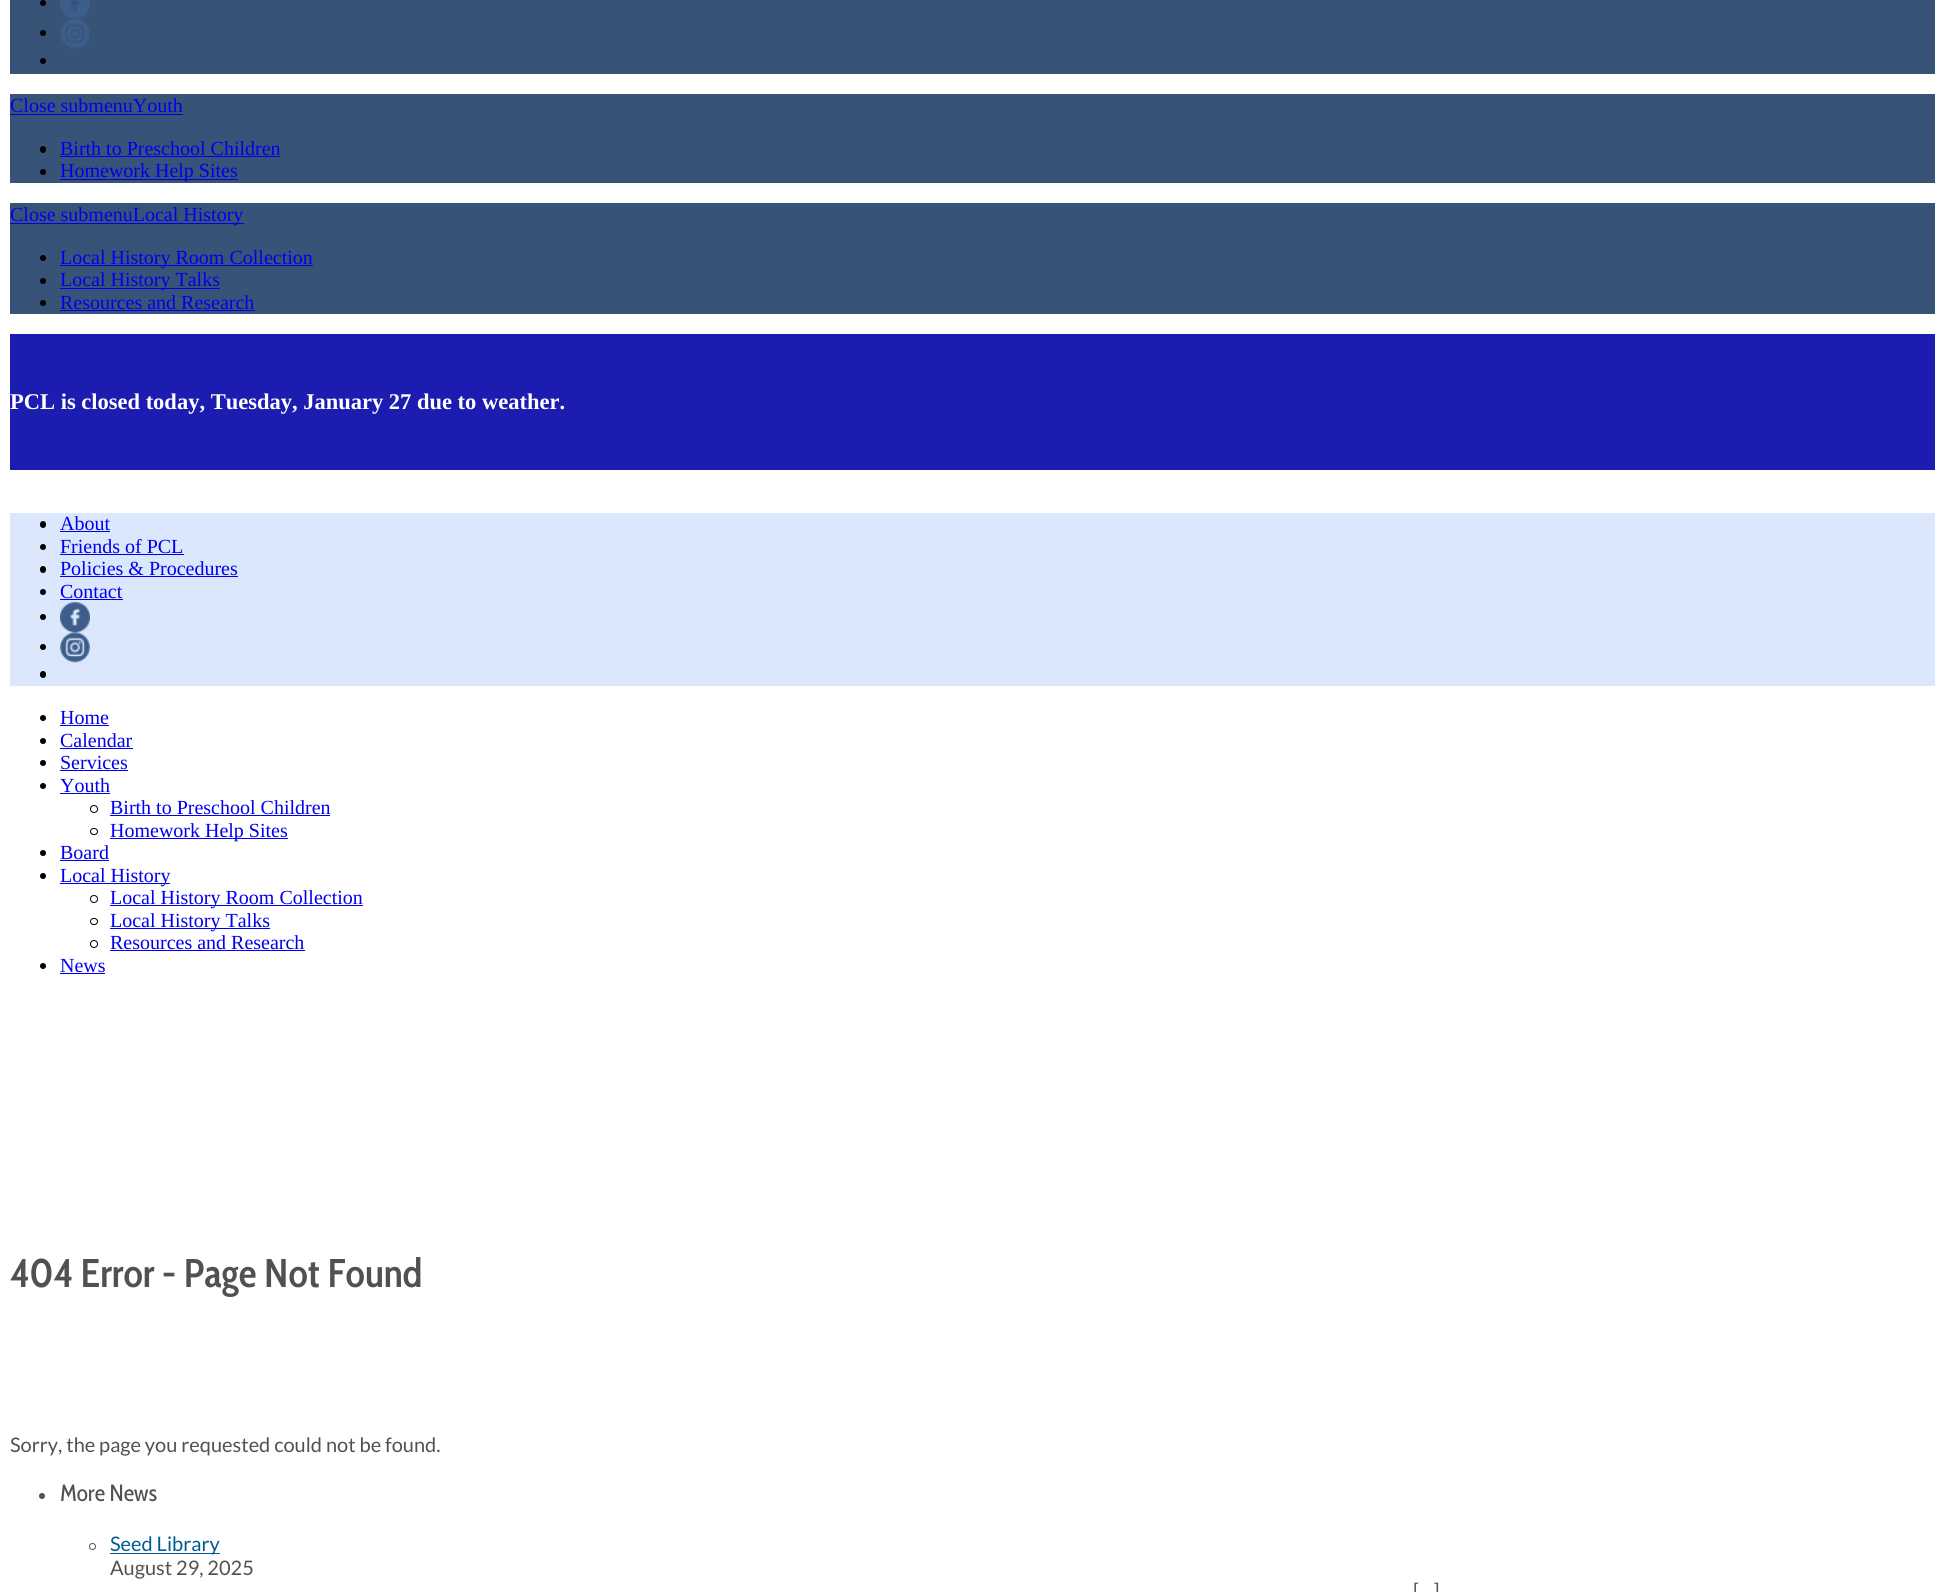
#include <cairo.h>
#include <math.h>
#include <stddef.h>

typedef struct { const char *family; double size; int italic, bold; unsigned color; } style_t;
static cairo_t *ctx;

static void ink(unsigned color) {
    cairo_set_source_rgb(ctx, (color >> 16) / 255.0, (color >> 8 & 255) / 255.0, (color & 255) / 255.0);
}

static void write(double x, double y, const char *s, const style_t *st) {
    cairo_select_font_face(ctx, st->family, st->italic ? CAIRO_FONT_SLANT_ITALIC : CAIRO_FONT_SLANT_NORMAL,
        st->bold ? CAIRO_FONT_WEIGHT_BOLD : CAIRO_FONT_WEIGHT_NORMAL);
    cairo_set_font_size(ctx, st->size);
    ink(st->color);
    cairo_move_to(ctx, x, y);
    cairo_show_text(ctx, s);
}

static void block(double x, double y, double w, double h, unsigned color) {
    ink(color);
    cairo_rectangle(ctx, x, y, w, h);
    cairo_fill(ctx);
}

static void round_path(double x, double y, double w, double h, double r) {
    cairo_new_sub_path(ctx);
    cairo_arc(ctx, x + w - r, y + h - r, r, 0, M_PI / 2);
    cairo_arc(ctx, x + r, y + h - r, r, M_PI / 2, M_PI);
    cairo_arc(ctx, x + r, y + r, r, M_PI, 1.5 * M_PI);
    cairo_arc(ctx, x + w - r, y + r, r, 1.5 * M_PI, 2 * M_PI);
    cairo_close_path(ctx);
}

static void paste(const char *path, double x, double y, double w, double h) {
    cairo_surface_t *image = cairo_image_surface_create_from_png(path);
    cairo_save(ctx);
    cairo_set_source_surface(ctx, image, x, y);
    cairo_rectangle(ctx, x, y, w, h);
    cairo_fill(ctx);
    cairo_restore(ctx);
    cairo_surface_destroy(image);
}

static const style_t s1 = {"Liberation Serif", 20, 0, 0, 0x0000ee};
static const style_t s2 = {"Liberation Serif", 22.5, 0, 1, 0xffffff};
static const style_t s3 = {"Cabin Condensed SemiBold", 40, 0, 0, 0x515151};
static const style_t s4 = {"Lato", 20, 0, 0, 0x515151};
static const style_t s5 = {"Cabin Condensed", 23.5, 0, 0, 0x515151};
static const style_t s6 = {"Lato", 20, 0, 0, 0x005b94};

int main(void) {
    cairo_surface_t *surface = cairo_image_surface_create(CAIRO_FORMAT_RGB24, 1944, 1592);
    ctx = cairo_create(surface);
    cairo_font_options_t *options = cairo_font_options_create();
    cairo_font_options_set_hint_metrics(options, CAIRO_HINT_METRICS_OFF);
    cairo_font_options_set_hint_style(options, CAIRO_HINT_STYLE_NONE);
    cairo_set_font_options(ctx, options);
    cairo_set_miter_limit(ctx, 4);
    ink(0xffffff);
    cairo_paint(ctx);
    block(10, 0, 1925, 74, 0x385378);
    ink(0x000000);
    cairo_arc(ctx, 43, 3, 3, 0, 2 * M_PI);
    cairo_fill(ctx);
    paste("pic1.png", 60, 0, 30, 19);
    cairo_arc(ctx, 43, 33, 3, 0, 2 * M_PI);
    cairo_fill(ctx);
    paste("pic2.png", 60, 19, 30, 30);
    cairo_arc(ctx, 43, 61, 3, 0, 2 * M_PI);
    cairo_fill(ctx);
    block(10, 94, 1925, 89, 0x385378);
    write(10, 112, "Close submenuYouth", &s1);
    block(10, 114, 173, 1, 0x0000ee);
    ink(0x000000);
    round_path(40, 146, 6, 7, 3);
    cairo_fill(ctx);
    write(60, 155, "Birth to Preschool Children", &s1);
    block(60, 156, 220, 1, 0x0000ee);
    ink(0x000000);
    cairo_new_path(ctx);
    cairo_arc(ctx, 43, 172, 3, 0, 2 * M_PI);
    cairo_fill(ctx);
    block(60, 179, 178, 1, 0x0000ee);
    write(60, 177, "Homework Help Sites", &s1);
    block(10, 203, 1925, 111, 0x385378);
    block(10, 223, 234, 1, 0x0000ee);
    write(10, 221, "Close submenuLocal History", &s1);
    ink(0x000000);
    cairo_new_path(ctx);
    cairo_arc(ctx, 43, 258, 3, 0, 2 * M_PI);
    cairo_fill(ctx);
    block(60, 265, 253, 1, 0x0000ee);
    write(60, 264, "Local History Room Collection", &s1);
    ink(0x000000);
    cairo_new_path(ctx);
    cairo_arc(ctx, 43, 281, 3, 0, 2 * M_PI);
    cairo_fill(ctx);
    block(60, 288, 160, 1, 0x0000ee);
    write(60, 286, "Local History Talks", &s1);
    ink(0x000000);
    cairo_new_path(ctx);
    cairo_arc(ctx, 43, 303, 3, 0, 2 * M_PI);
    cairo_fill(ctx);
    write(60, 309, "Resources and Research", &s1);
    block(60, 310, 195, 1, 0x0000ee);
    block(10, 334, 1925, 136, 0x1c1cb0);
    write(10, 409, "PCL is closed today, Tuesday, January 27 due to weather.", &s2);
    block(10, 513, 1925, 173, 0xdbe7fc);
    ink(0x000000);
    round_path(40, 521, 6, 7, 3);
    cairo_fill(ctx);
    write(60, 530, "About", &s1);
    block(60, 531, 50, 1, 0x0000ee);
    ink(0x000000);
    cairo_new_path(ctx);
    cairo_arc(ctx, 43, 547, 3, 0, 2 * M_PI);
    cairo_fill(ctx);
    write(60, 553, "Friends of PCL", &s1);
    block(60, 554, 124, 1, 0x0000ee);
    ink(0x000000);
    round_path(40, 566, 6, 7, 3);
    cairo_fill(ctx);
    write(60, 575, "Policies & Procedures", &s1);
    block(60, 576, 178, 1, 0x0000ee);
    ink(0x000000);
    cairo_new_path(ctx);
    cairo_arc(ctx, 43, 592, 3, 0, 2 * M_PI);
    cairo_fill(ctx);
    write(60, 598, "Contact", &s1);
    block(60, 599, 63, 1, 0x0000ee);
    ink(0x000000);
    cairo_new_path(ctx);
    cairo_arc(ctx, 43, 617, 3, 0, 2 * M_PI);
    cairo_fill(ctx);
    paste("pic3.png", 60, 602, 30, 31);
    cairo_arc(ctx, 43, 647, 3, 0, 2 * M_PI);
    cairo_fill(ctx);
    paste("pic4.png", 60, 632, 30, 31);
    round_path(40, 671, 6, 7, 3);
    cairo_fill(ctx);
    cairo_arc(ctx, 43, 718, 3, 0, 2 * M_PI);
    cairo_fill(ctx);
    write(60, 724, "Home", &s1);
    block(60, 725, 49, 1, 0x0000ee);
    ink(0x000000);
    cairo_new_path(ctx);
    cairo_arc(ctx, 43, 741, 3, 0, 2 * M_PI);
    cairo_fill(ctx);
    write(60, 747, "Calendar", &s1);
    block(60, 748, 73, 1, 0x0000ee);
    ink(0x000000);
    cairo_new_path(ctx);
    cairo_arc(ctx, 43, 763, 3, 0, 2 * M_PI);
    cairo_fill(ctx);
    write(60, 769, "Services", &s1);
    block(60, 770, 68, 1, 0x0000ee);
    ink(0x000000);
    cairo_new_path(ctx);
    cairo_arc(ctx, 43, 786, 3, 0, 2 * M_PI);
    cairo_fill(ctx);
    write(60, 792, "Youth", &s1);
    block(60, 793, 50, 1, 0x0000ee);
    cairo_new_path(ctx);
    cairo_arc(ctx, 94, 809, 3.5, 0, 2 * M_PI);
    ink(0x000000);
    cairo_set_line_width(ctx, 1);
    cairo_stroke(ctx);
    write(110, 814, "Birth to Preschool Children", &s1);
    block(110, 815, 220, 1, 0x0000ee);
    round_path(90.5, 828.5, 7, 6, 3);
    ink(0x000000);
    cairo_stroke(ctx);
    block(110, 838, 178, 1, 0x0000ee);
    write(110, 837, "Homework Help Sites", &s1);
    ink(0x000000);
    cairo_new_path(ctx);
    cairo_arc(ctx, 43, 853, 3, 0, 2 * M_PI);
    cairo_fill(ctx);
    write(60, 859, "Board", &s1);
    block(60, 860, 49, 1, 0x0000ee);
    ink(0x000000);
    cairo_new_path(ctx);
    cairo_arc(ctx, 43, 876, 3, 0, 2 * M_PI);
    cairo_fill(ctx);
    block(60, 883, 110, 1, 0x0000ee);
    write(60, 882, "Local History", &s1);
    cairo_new_path(ctx);
    cairo_arc(ctx, 94, 899, 3.5, 0, 2 * M_PI);
    ink(0x000000);
    cairo_stroke(ctx);
    block(110, 905, 253, 1, 0x0000ee);
    write(110, 904, "Local History Room Collection", &s1);
    round_path(90.5, 918.5, 7, 6, 3);
    ink(0x000000);
    cairo_stroke(ctx);
    block(110, 928, 160, 1, 0x0000ee);
    write(110, 927, "Local History Talks", &s1);
    cairo_new_path(ctx);
    cairo_arc(ctx, 94, 944, 3.5, 0, 2 * M_PI);
    ink(0x000000);
    cairo_stroke(ctx);
    write(110, 949, "Resources and Research", &s1);
    block(110, 950, 195, 1, 0x0000ee);
    ink(0x000000);
    cairo_new_path(ctx);
    cairo_arc(ctx, 43, 966, 3, 0, 2 * M_PI);
    cairo_fill(ctx);
    write(60, 972, "News", &s1);
    block(60, 973, 45, 1, 0x0000ee);
    write(10, 1287, "404 Error - Page Not Found", &s3);
    write(10, 1452, "Sorry, the page you requested could not be found.", &s4);
    cairo_new_path(ctx);
    cairo_arc(ctx, 42, 1496, 3, 0, 2 * M_PI);
    cairo_fill(ctx);
    write(60, 1501, "More News", &s5);
    cairo_new_path(ctx);
    cairo_arc(ctx, 92.5, 1546.5, 3, 0, 2 * M_PI);
    cairo_stroke(ctx);
    block(110, 1553, 110, 1, 0x005b94);
    write(110, 1551, "Seed Library", &s6);
    write(110, 1575, "August 29, 2025", &s4);
    write(1413, 1598, "[…]", &s4);
    cairo_surface_write_to_png(surface, "screenshot.png");
    cairo_font_options_destroy(options);
    cairo_destroy(ctx);
    cairo_surface_destroy(surface);
    return 0;
}
